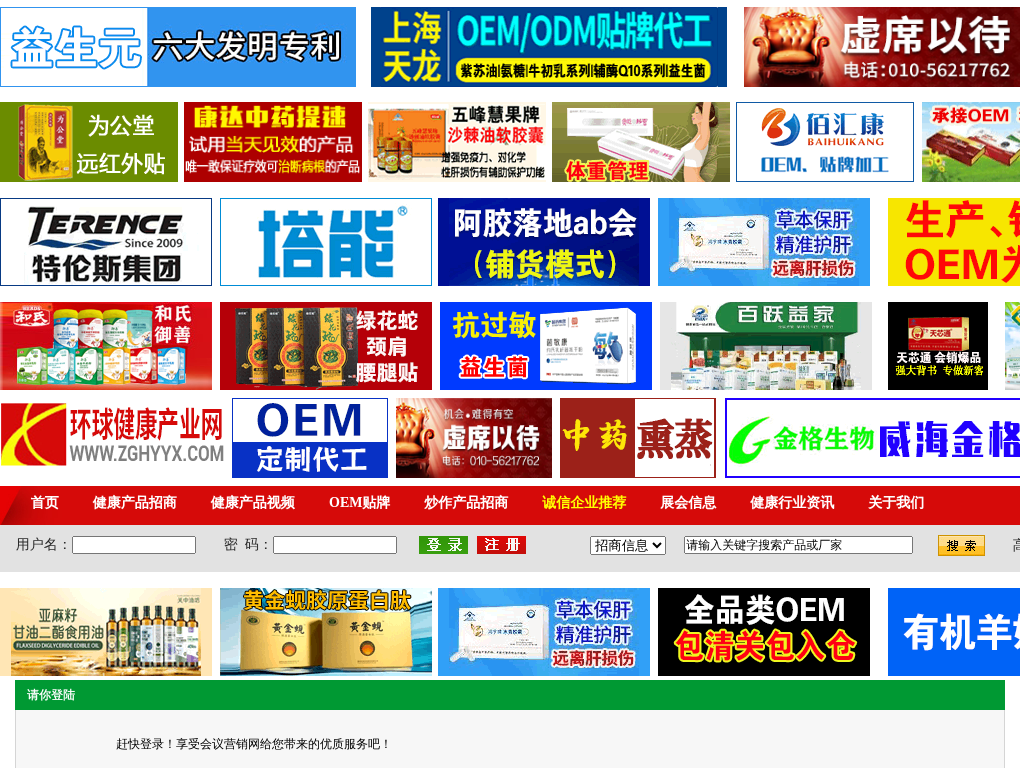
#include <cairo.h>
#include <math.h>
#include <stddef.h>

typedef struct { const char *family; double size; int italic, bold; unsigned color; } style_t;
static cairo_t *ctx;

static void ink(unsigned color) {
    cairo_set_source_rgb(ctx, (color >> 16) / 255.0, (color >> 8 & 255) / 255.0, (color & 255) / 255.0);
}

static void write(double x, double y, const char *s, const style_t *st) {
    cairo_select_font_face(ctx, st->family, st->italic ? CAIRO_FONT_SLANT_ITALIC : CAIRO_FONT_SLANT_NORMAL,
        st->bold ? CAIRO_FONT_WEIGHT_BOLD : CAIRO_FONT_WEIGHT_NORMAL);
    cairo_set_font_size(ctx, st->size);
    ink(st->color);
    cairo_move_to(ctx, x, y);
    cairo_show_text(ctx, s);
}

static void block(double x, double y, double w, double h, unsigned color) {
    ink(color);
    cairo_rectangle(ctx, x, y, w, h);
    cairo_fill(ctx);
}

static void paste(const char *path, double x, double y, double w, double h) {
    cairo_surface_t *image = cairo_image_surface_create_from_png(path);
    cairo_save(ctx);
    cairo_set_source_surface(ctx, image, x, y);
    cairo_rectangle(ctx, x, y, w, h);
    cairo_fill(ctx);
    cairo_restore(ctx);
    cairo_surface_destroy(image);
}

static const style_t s1 = {"WenQuanYi Zen Hei", 12, 0, 1, 0xffffff};
static const style_t s2 = {"WenQuanYi Zen Hei Medium", 12, 0, 0, 0x000000};

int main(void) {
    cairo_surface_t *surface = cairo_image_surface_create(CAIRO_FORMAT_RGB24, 1020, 768);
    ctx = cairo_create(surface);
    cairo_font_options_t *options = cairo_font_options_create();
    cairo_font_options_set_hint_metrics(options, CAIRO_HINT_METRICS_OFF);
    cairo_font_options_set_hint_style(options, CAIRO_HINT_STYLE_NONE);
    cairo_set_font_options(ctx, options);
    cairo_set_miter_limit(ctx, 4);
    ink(0xffffff);
    cairo_paint(ctx);
    paste("pic1.png", 0, 7, 1020, 669);
    block(15, 680, 990, 30, 0x009933);
    write(27, 699, "请你登陆", &s1);
    block(16, 710, 988, 58, 0xf7f7f7);
    block(1004, 710, 1, 58, 0xd5d5d5);
    block(15, 710, 1, 58, 0xd5d5d5);
    write(116, 748, "赶快登录！享受会议营销网给您带来的优质服务吧！", &s2);
    cairo_surface_write_to_png(surface, "screenshot.png");
    cairo_font_options_destroy(options);
    cairo_destroy(ctx);
    cairo_surface_destroy(surface);
    return 0;
}
